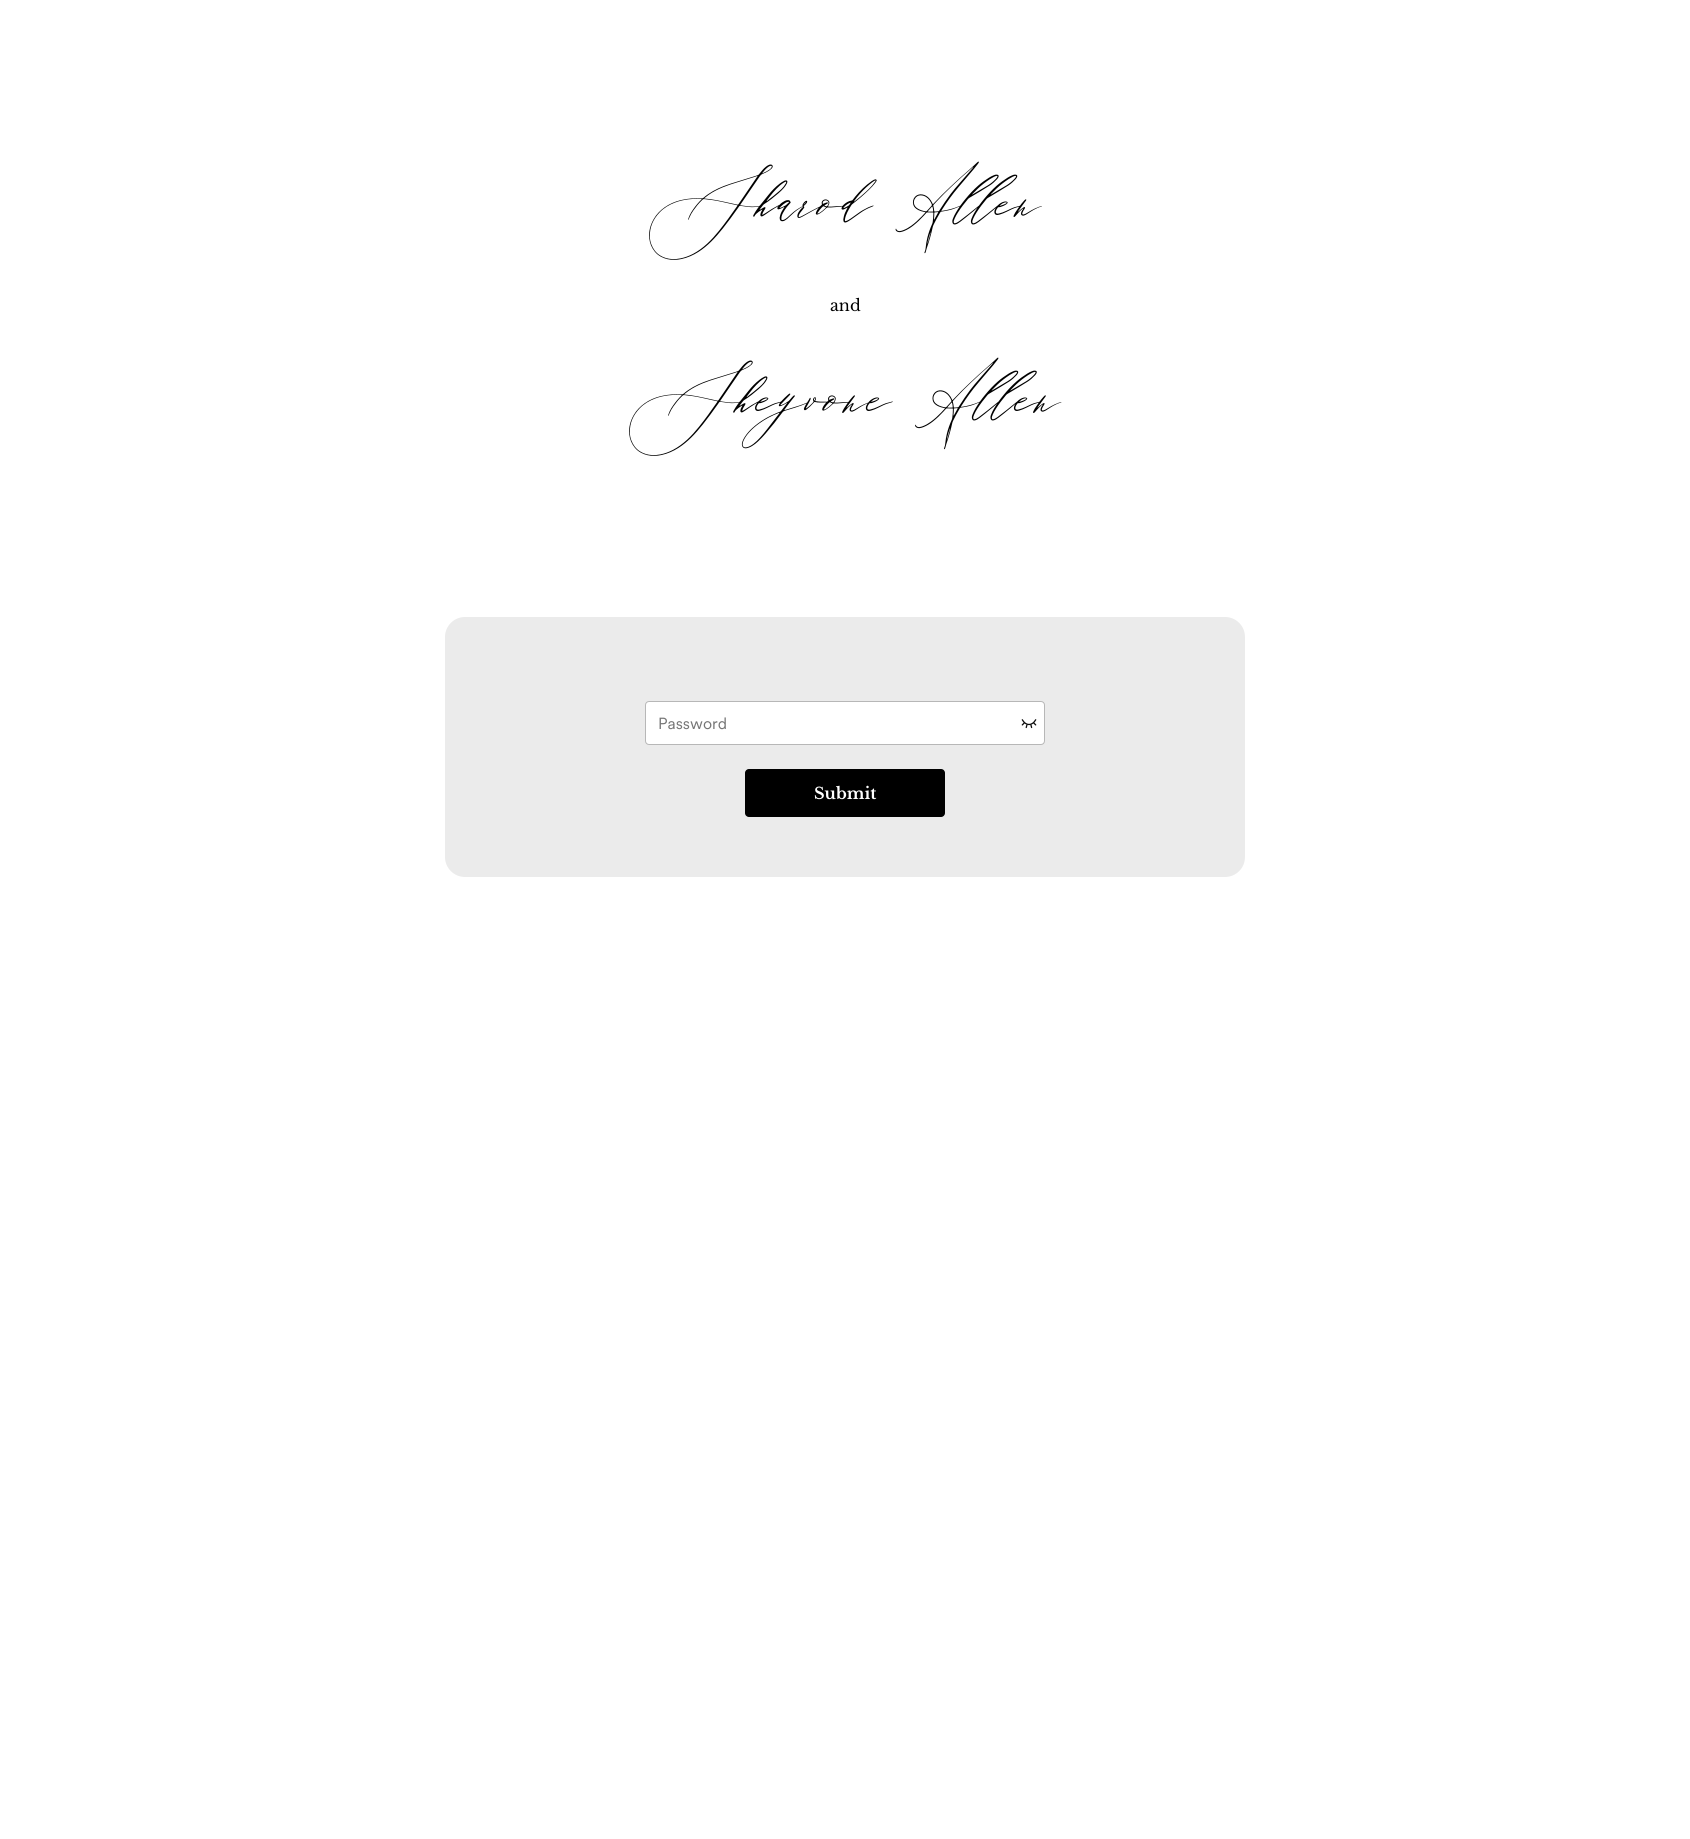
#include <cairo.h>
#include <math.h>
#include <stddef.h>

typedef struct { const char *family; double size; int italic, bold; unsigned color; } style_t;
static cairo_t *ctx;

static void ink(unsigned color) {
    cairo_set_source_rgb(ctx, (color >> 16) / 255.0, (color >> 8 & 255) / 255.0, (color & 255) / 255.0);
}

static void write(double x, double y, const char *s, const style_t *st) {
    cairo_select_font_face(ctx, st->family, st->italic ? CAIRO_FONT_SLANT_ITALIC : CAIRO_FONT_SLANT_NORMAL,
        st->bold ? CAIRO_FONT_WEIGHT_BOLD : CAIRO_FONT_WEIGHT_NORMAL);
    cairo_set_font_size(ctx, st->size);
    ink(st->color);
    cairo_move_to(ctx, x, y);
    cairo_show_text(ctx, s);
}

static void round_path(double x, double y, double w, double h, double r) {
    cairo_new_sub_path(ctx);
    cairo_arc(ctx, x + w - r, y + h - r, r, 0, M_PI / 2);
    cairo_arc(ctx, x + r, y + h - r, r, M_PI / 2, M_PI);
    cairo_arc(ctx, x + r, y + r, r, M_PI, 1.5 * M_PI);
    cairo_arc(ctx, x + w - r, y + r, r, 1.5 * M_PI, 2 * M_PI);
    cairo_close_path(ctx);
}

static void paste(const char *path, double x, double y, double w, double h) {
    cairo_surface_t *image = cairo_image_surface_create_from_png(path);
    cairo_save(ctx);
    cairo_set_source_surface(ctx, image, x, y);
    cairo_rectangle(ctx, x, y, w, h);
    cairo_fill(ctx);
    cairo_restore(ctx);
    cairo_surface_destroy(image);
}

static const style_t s1 = {"Libre Baskerville", 16, 0, 0, 0x000000};
static const style_t s2 = {"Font", 16, 0, 0, 0x757575};
static const style_t s3 = {"Libre Baskerville", 16, 0, 1, 0xffffff};

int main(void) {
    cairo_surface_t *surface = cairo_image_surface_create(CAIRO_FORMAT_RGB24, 1690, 1839);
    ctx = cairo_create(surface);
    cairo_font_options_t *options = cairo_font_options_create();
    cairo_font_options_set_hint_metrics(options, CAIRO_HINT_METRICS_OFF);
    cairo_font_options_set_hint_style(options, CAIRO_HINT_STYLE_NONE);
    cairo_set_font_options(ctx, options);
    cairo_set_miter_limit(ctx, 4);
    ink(0xffffff);
    cairo_paint(ctx);
    paste("pic1.png", 649, 161, 393, 99);
    write(830, 311, "and", &s1);
    paste("pic2.png", 629, 357, 433, 99);
    ink(0xebebeb);
    round_path(445, 617, 800, 260, 20);
    cairo_fill(ctx);
    ink(0xffffff);
    round_path(645.5, 701.5, 399, 43, 3.5);
    cairo_fill_preserve(ctx);
    ink(0xb7b7b7);
    cairo_set_line_width(ctx, 1);
    cairo_stroke(ctx);
    write(658, 729, "Password", &s2);
    paste("pic3.png", 1021, 719, 16, 10);
    ink(0x000000);
    round_path(745, 769, 200, 48, 4);
    cairo_fill(ctx);
    write(814, 799, "Submit", &s3);
    cairo_surface_write_to_png(surface, "screenshot.png");
    cairo_font_options_destroy(options);
    cairo_destroy(ctx);
    cairo_surface_destroy(surface);
    return 0;
}
